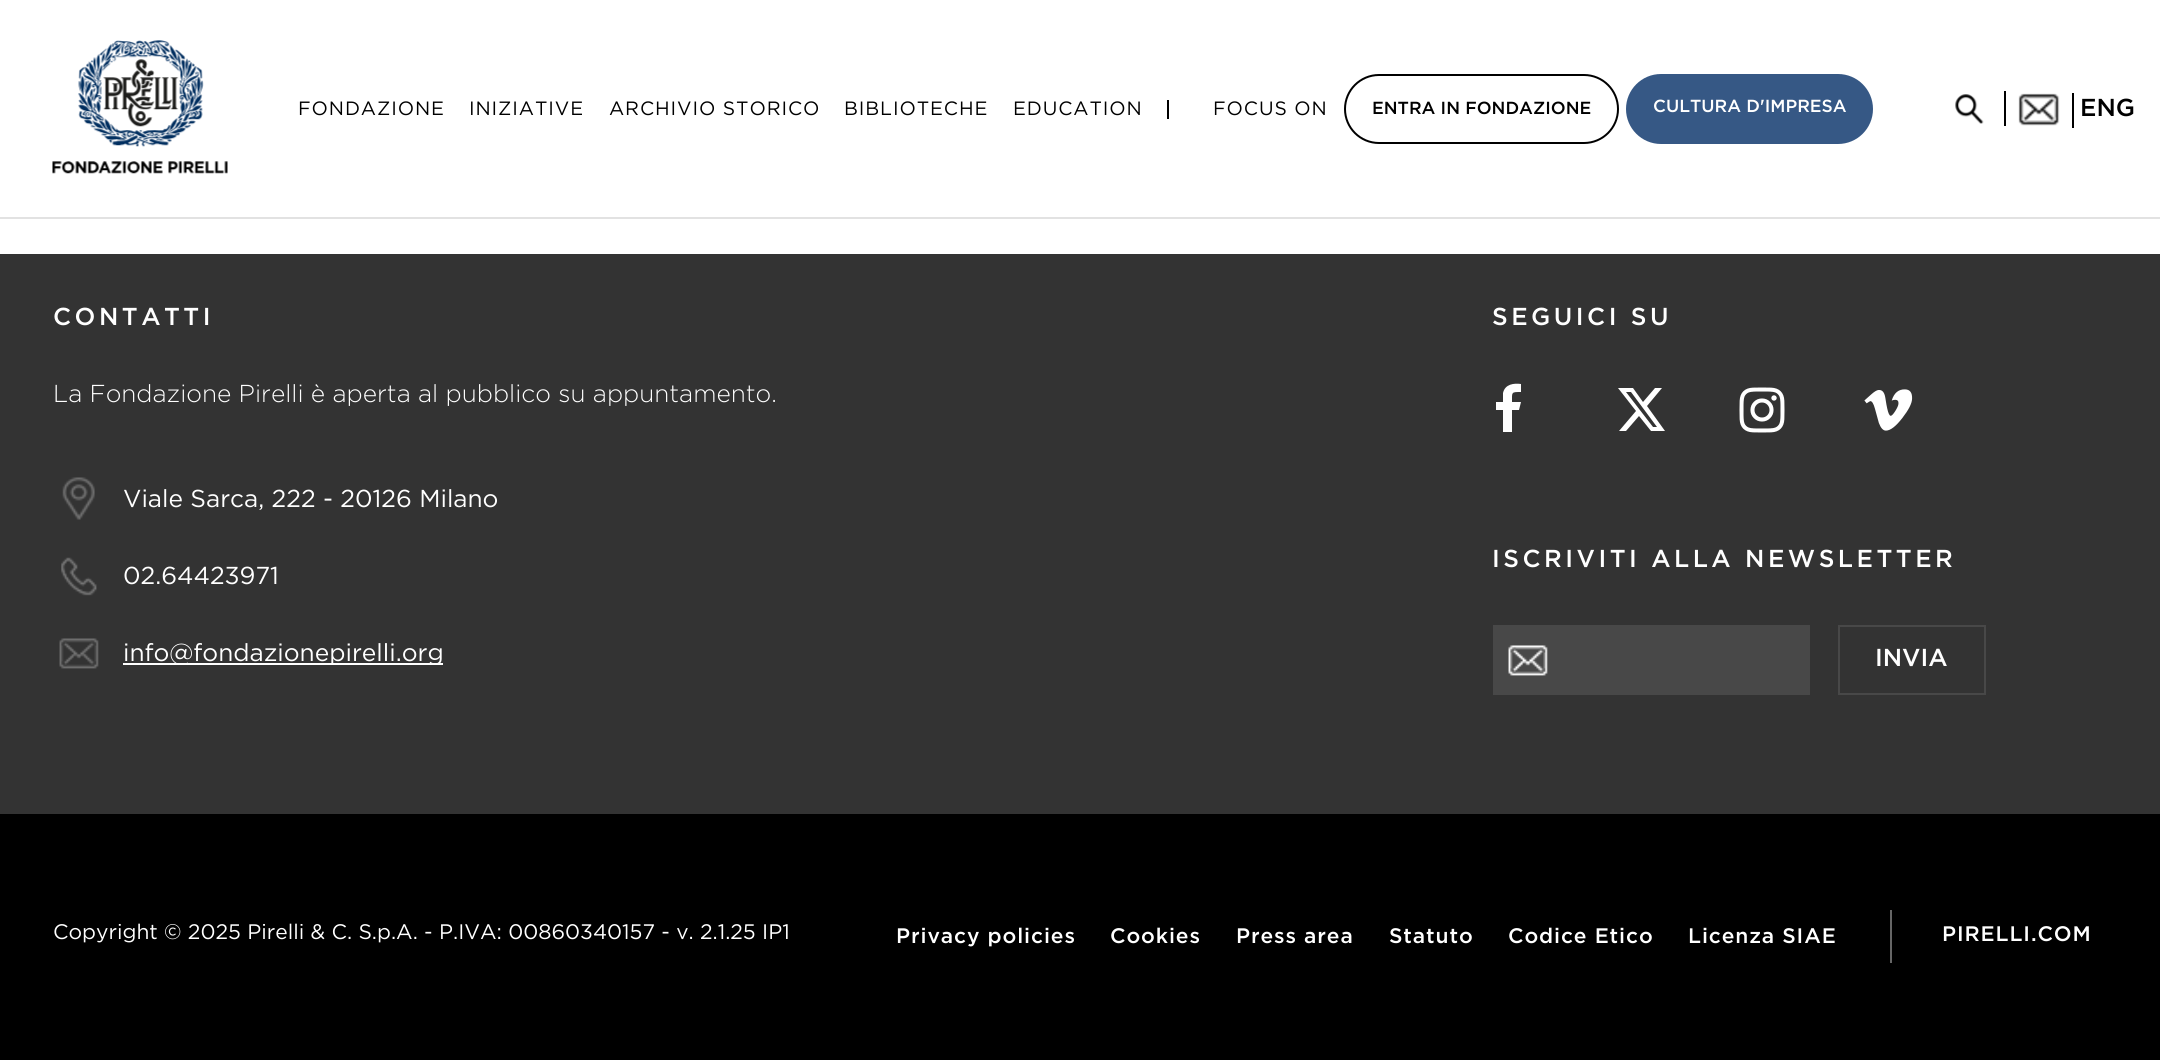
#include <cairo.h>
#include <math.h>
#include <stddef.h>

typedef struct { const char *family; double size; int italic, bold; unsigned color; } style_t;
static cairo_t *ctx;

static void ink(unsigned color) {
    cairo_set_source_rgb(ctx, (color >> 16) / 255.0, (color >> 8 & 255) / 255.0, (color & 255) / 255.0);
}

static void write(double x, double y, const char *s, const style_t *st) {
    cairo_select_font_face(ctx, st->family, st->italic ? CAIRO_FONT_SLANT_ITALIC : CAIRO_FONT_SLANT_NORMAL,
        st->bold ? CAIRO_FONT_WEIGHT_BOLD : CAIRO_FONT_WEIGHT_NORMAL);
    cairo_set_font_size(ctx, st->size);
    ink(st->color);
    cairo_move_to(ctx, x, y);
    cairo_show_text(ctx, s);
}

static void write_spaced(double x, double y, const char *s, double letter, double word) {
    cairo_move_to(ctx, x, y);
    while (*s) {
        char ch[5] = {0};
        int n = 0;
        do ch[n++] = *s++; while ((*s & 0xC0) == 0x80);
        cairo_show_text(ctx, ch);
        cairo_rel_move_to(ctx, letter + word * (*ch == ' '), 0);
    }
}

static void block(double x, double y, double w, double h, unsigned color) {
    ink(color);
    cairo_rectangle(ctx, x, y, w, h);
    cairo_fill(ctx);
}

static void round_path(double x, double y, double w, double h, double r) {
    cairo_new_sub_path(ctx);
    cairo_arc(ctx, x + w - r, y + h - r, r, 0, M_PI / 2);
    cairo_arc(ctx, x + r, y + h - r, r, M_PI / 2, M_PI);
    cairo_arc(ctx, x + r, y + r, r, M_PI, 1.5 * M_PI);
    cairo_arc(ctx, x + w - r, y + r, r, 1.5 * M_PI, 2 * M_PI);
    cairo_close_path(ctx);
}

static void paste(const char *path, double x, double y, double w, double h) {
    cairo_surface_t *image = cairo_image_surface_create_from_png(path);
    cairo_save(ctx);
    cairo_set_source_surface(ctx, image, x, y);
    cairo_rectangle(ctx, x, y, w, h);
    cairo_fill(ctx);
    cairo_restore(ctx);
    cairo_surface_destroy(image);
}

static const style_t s1 = {"Gotham Medium", 17.5, 0, 0, 0x000000};
static const style_t s2 = {"Gotham Medium", 17.5, 0, 0, 0xffffff};
static const style_t s3 = {"Gotham Medium", 24.5, 0, 0, 0x000000};
static const style_t s4 = {"Gotham Light", 24.5, 0, 0, 0xffffff};
static const style_t s5 = {"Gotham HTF", 24.5, 0, 0, 0xffffff};
static const style_t s6 = {"Gotham Medium", 24.5, 0, 0, 0xffffff};
static const style_t s7 = {"Gotham HTF", 21, 0, 0, 0xffffff};

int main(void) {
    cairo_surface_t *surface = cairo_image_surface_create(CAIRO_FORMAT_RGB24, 2160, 1060);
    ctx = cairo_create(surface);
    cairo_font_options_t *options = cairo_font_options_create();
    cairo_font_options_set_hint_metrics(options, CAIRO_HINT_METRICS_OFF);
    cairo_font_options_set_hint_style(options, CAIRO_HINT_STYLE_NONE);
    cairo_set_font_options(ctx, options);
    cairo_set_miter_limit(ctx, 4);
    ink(0xffffff);
    cairo_paint(ctx);
    block(0, 217, 2160, 2, 0xe2e2e2);
    paste("pic1.png", 52, 40, 176, 134);
    cairo_select_font_face(ctx, "Gotham HTF", CAIRO_FONT_SLANT_NORMAL, CAIRO_FONT_WEIGHT_NORMAL);
    cairo_set_font_size(ctx, 19.25);
    ink(0x000000);
    write_spaced(298, 115, "FONDAZIONE", 0.9, 0);
    write_spaced(469, 115, "INIZIATIVE", 0.9, 0);
    write_spaced(609, 115, "ARCHIVIO STORICO", 0.9, 0);
    write_spaced(844, 115, "BIBLIOTECHE", 0.9, 0);
    write_spaced(1013, 115, "EDUCATION", 0.9, 0);
    block(1167, 100, 2, 19, 0x000000);
    write_spaced(1213, 115, "FOCUS ON", 0.9, 0);
    round_path(1345, 75, 273, 68, 34);
    cairo_stroke(ctx);
    write(1372, 114, "ENTRA IN FONDAZIONE", &s1);
    ink(0x365885);
    round_path(1626, 74, 247, 70, 35);
    cairo_fill(ctx);
    write(1653, 112, "CULTURA D'IMPRESA", &s2);
    paste("pic2.png", 1955, 94, 29, 30);
    block(2004, 91, 2, 35, 0x000000);
    paste("pic3.png", 2018, 93, 42, 33);
    block(2072, 93, 2, 35, 0x000000);
    write(2080, 116, "ENG", &s3);
    block(0, 254, 2160, 560, 0x333333);
    ink(0xffffff);
    write_spaced(53, 325, "CONTATTI", 3.5, 0);
    write(53, 402, "La Fondazione Pirelli è aperta al pubblico su appuntamento.", &s4);
    paste("pic4.png", 62, 477, 33, 43);
    write(123, 507, "Viale Sarca, 222 - 20126 Milano", &s5);
    paste("pic5.png", 61, 557, 36, 39);
    write(123, 584, "02.64423971", &s5);
    paste("pic6.png", 59, 638, 40, 31);
    block(123, 663, 320, 2, 0xffffff);
    write(123, 661, "info@fondazionepirelli.org", &s5);
    cairo_select_font_face(ctx, "Gotham Medium", CAIRO_FONT_SLANT_NORMAL, CAIRO_FONT_WEIGHT_NORMAL);
    write_spaced(1492, 325, "SEGUICI SU", 3.5, 0);
    cairo_new_path(ctx);
    cairo_move_to(ctx, 1521, 384);
    cairo_line_to(ctx, 1521, 392);
    cairo_curve_to(ctx, 1511, 392, 1512, 392, 1512, 402);
    cairo_line_to(ctx, 1521, 402);
    cairo_line_to(ctx, 1519, 410);
    cairo_line_to(ctx, 1512, 410);
    cairo_line_to(ctx, 1512, 432);
    cairo_line_to(ctx, 1503, 432);
    cairo_line_to(ctx, 1503, 410);
    cairo_line_to(ctx, 1496, 410);
    cairo_line_to(ctx, 1496, 402);
    cairo_line_to(ctx, 1503, 402);
    cairo_line_to(ctx, 1503, 393);
    cairo_curve_to(ctx, 1505, 384, 1514, 383, 1521, 384);
    cairo_close_path(ctx);
    cairo_fill(ctx);
    cairo_new_path(ctx);
    cairo_move_to(ctx, 1655, 388);
    cairo_line_to(ctx, 1662, 388);
    cairo_line_to(ctx, 1647, 406);
    cairo_line_to(ctx, 1665, 431);
    cairo_line_to(ctx, 1651, 431);
    cairo_line_to(ctx, 1639, 416);
    cairo_line_to(ctx, 1626, 431);
    cairo_line_to(ctx, 1619, 431);
    cairo_line_to(ctx, 1636, 411);
    cairo_line_to(ctx, 1618, 388);
    cairo_line_to(ctx, 1633, 388);
    cairo_line_to(ctx, 1643, 402);
    cairo_close_path(ctx);
    cairo_move_to(ctx, 1653, 427);
    cairo_line_to(ctx, 1657, 427);
    cairo_line_to(ctx, 1631, 392);
    cairo_line_to(ctx, 1626, 392);
    cairo_close_path(ctx);
    cairo_fill(ctx);
    paste("pic7.png", 1739, 387, 46, 46);
    paste("pic8.png", 1864, 389, 49, 42);
    write_spaced(1492, 567, "ISCRIVITI ALLA NEWSLETTER", 3.5, 0);
    block(1493, 625, 317, 70, 0x484848);
    paste("pic9.png", 1508, 645, 40, 31);
    cairo_rectangle(ctx, 1839, 626, 146, 68);
    cairo_stroke(ctx);
    write(1875, 666, "INVIA", &s6);
    block(0, 814, 2160, 246, 0x000000);
    write(53, 939, "Copyright © 2025 Pirelli & C. S.p.A. - P.IVA: 00860340157 - v. 2.1.25 IP1", &s7);
    cairo_select_font_face(ctx, "Gotham Medium", CAIRO_FONT_SLANT_NORMAL, CAIRO_FONT_WEIGHT_NORMAL);
    write_spaced(896, 943, "Privacy policies", 0.9, 0);
    write_spaced(1110, 943, "Cookies", 0.9, 0);
    write_spaced(1236, 943, "Press area", 0.9, 0);
    write_spaced(1389, 943, "Statuto", 0.9, 0);
    write_spaced(1508, 943, "Codice Etico", 0.9, 0);
    write_spaced(1688, 943, "Licenza SIAE", 0.9, 0);
    block(1890, 910, 2, 53, 0x666666);
    ink(0xffffff);
    write_spaced(1942, 941, "PIRELLI.COM", 0.9, 0);
    cairo_surface_write_to_png(surface, "screenshot.png");
    cairo_font_options_destroy(options);
    cairo_destroy(ctx);
    cairo_surface_destroy(surface);
    return 0;
}
